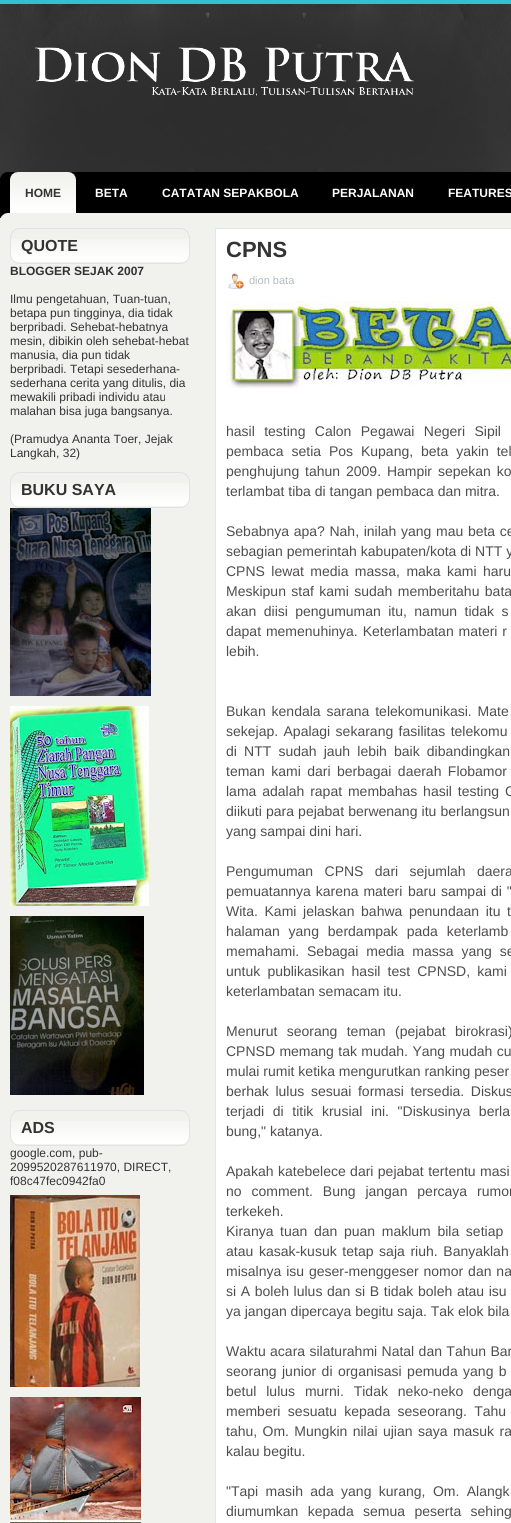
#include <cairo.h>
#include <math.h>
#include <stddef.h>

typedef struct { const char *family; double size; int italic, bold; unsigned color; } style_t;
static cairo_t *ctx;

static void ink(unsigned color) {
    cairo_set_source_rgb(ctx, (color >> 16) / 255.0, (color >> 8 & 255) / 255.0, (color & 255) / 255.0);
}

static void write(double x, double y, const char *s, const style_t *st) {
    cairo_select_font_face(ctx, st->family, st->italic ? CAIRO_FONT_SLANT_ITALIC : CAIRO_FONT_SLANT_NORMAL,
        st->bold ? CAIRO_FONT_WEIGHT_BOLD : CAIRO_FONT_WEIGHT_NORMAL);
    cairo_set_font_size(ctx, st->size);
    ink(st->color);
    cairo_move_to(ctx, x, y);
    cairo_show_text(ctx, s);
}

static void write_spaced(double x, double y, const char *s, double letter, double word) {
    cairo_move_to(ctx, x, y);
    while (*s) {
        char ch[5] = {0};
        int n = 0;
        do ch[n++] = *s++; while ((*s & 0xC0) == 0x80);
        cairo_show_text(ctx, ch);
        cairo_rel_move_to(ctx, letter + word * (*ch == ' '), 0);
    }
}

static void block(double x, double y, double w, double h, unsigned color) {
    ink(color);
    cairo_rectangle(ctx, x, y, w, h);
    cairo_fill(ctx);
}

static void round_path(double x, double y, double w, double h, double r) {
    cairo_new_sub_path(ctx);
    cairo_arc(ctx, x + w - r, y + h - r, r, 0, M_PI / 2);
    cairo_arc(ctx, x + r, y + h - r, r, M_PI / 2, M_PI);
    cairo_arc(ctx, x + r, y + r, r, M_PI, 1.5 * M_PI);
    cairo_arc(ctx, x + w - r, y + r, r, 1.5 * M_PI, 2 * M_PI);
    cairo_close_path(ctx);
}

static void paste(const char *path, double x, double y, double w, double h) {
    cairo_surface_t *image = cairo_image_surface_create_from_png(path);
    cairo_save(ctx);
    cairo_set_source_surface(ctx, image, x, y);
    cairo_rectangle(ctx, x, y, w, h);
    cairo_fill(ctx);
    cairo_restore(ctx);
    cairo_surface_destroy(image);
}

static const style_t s1 = {"Liberation Sans", 12, 0, 1, 0x333333};
static const style_t s2 = {"Liberation Sans", 12, 0, 1, 0xffffff};
static const style_t s3 = {"Liberation Sans", 16, 0, 1, 0x333333};
static const style_t s4 = {"Liberation Sans", 12, 0, 0, 0x333333};
static const style_t s5 = {"Liberation Sans", 22, 0, 1, 0x333333};
static const style_t s6 = {"Liberation Sans", 11, 0, 0, 0xb2bdbf};
static const style_t s7 = {"Liberation Sans", 14, 0, 0, 0x504d4d};

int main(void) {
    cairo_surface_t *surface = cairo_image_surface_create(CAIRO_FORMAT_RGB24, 511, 1523);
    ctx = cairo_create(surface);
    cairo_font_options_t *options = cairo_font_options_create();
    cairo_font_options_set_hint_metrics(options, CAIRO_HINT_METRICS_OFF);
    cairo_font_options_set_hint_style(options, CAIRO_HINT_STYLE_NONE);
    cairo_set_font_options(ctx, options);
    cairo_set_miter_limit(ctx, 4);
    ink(0x36bfd2);
    cairo_paint(ctx);
    paste("pic1.png", 0, 4, 511, 176);
    paste("pic2.png", 35, 47, 379, 49);
    paste("pic3.png", 0, 172, 511, 46);
    paste("pic4.png", 10, 172, 66, 41);
    write(25, 197, "HOME", &s1);
    write(95, 197, "BETA", &s2);
    write(162, 197, "CATATAN SEPAKBOLA", &s2);
    write(332, 197, "PERJALANAN", &s2);
    write(448, 197, "FEATURES", &s2);
    block(0, 218, 511, 1305, 0xf1f1ed);
    paste("pic5.png", 10, 239, 180, 23);
    round_path(10.5, 228.5, 179, 35, 9.5);
    ink(0xe3e1e1);
    cairo_set_line_width(ctx, 1);
    cairo_stroke(ctx);
    write(21, 251, "QUOTE", &s3);
    write(10, 275, "BLOGGER SEJAK 2007", &s1);
    write(10, 303, "Ilmu pengetahuan, Tuan-tuan,", &s4);
    write(10, 317, "betapa pun tingginya, dia tidak", &s4);
    write(10, 331, "berpribadi. Sehebat-hebatnya", &s4);
    write(10, 345, "mesin, dibikin oleh sehebat-hebat", &s4);
    write(10, 359, "manusia, dia pun tidak", &s4);
    write(10, 373, "berpribadi. Tetapi sesederhana-", &s4);
    write(10, 387, "sederhana cerita yang ditulis, dia", &s4);
    write(10, 401, "mewakili pribadi individu atau", &s4);
    write(10, 415, "malahan bisa juga bangsanya.", &s4);
    write(10, 443, "(Pramudya Ananta Toer, Jejak", &s4);
    write(10, 457, "Langkah, 32)", &s4);
    paste("pic6.png", 10, 483, 180, 23);
    round_path(10.5, 472.5, 179, 35, 9.5);
    ink(0xe3e1e1);
    cairo_stroke(ctx);
    write(21, 495, "BUKU SAYA", &s3);
    paste("pic7.png", 10, 508, 141, 188);
    paste("pic8.png", 10, 706, 139, 200);
    paste("pic9.png", 10, 916, 134, 179);
    paste("pic6.png", 10, 1121, 180, 23);
    round_path(10.5, 1110.5, 179, 35, 9.5);
    ink(0xe3e1e1);
    cairo_stroke(ctx);
    write(21, 1133, "ADS", &s3);
    write(10, 1157, "google.com, pub-", &s4);
    write(10, 1171, "2099520287611970, DIRECT,", &s4);
    write(10, 1185, "f08c47fec0942fa0", &s4);
    paste("pic10.png", 10, 1195, 130, 192);
    paste("pic11.png", 10, 1397, 131, 126);
    ink(0xffffff);
    cairo_rectangle(ctx, 215.5, 228.5, 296, 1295);
    cairo_fill_preserve(ctx);
    ink(0xdde8e9);
    cairo_stroke(ctx);
    write(226, 257, "CPNS", &s5);
    paste("pic12.png", 228, 273, 16, 16);
    write(249, 284, "dion bata", &s6);
    paste("pic13.png", 226, 301, 285, 88);
    cairo_set_font_size(ctx, 14);
    ink(0x504d4d);
    write_spaced(226, 436, "hasil testing Calon Pegawai Negeri Sipil", 0, 5.5);
    write_spaced(226, 456, "pembaca setia Pos Kupang, beta yakin tel", 0, 4);
    write_spaced(226, 476, "penghujung tahun 2009. Hampir sepekan ko", 0, 2);
    write(226, 496, "terlambat tiba di tangan pembaca dan mitra.", &s7);
    write_spaced(226, 536, "Sebabnya apa? Nah, inilah yang mau beta ce", 0, 0.75);
    write(226, 556, "sebagian pemerintah kabupaten/kota di NTT y", &s7);
    write_spaced(226, 576, "CPNS lewat media massa, maka kami haru", 0, 2.5);
    write_spaced(226, 596, "Meskipun staf kami sudah memberitahu bata", 0, 1.5);
    write_spaced(226, 616, "akan diisi pengumuman itu, namun tidak s", 0, 3.5);
    write_spaced(226, 636, "dapat memenuhinya. Keterlambatan materi r", 0, 1);
    write(226, 656, "lebih.", &s7);
    write_spaced(226, 716, "Bukan kendala sarana telekomunikasi. Mate", 0, 2);
    write_spaced(226, 736, "sekejap. Apalagi sekarang fasilitas telekomu", 0, 1.5);
    write_spaced(226, 756, "di NTT sudah jauh lebih baik dibandingkan", 0, 3.25);
    write_spaced(226, 776, "teman kami dari berbagai daerah Flobamor", 0, 2.5);
    write_spaced(226, 796, "lama adalah rapat membahas hasil testing C", 0, 2);
    write_spaced(226, 816, "diikuti para pejabat berwenang itu berlangsun", 0, 0.25);
    write(226, 836, "yang sampai dini hari.", &s7);
    write_spaced(226, 876, "Pengumuman CPNS dari sejumlah daera", 0, 7.5);
    write_spaced(226, 896, "pemuatannya karena materi", 0, 1);
    write_spaced(408, 896, "baru sampai di \"", 0, 1);
    write_spaced(226, 916, "Wita. Kami jelaskan bahwa penundaan itu t", 0, 2.75);
    write_spaced(226, 936, "halaman yang berdampak pada keterlamb", 0, 5);
    write_spaced(226, 956, "memahami. Sebagai media massa yang se", 0, 4);
    write_spaced(226, 976, "untuk publikasikan hasil test CPNSD, kami", 0, 3.25);
    write(226, 996, "keterlambatan semacam itu.", &s7);
    write_spaced(226, 1036, "Menurut seorang teman (pejabat birokrasi)", 0, 5.5);
    write_spaced(226, 1056, "CPNSD memang tak mudah. Yang mudah cu", 0, 0.5);
    write(226, 1076, "mulai rumit ketika mengurutkan ranking peser", &s7);
    write_spaced(226, 1096, "berhak lulus sesuai formasi tersedia. Diskus", 0, 2.75);
    write_spaced(226, 1116, "terjadi di titik krusial ini. \"Diskusinya berla", 0, 4.75);
    write(226, 1136, "bung,\" katanya.", &s7);
    write(226, 1176, "Apakah", &s7);
    write_spaced(278, 1176, "katebelece dari pejabat tertentu masi", 0, 0.5);
    write_spaced(226, 1196, "no comment. Bung jangan percaya rumor", 0, 6);
    write(226, 1216, "terkekeh.", &s7);
    write_spaced(226, 1236, "Kiranya tuan dan puan maklum bila setiap", 0, 2.75);
    write_spaced(226, 1256, "atau kasak-kusuk tetap saja riuh. Banyaklah", 0, 1.75);
    write_spaced(226, 1276, "misalnya isu geser-menggeser nomor dan na", 0, 1);
    write_spaced(226, 1296, "si A boleh lulus dan si B tidak boleh atau isu", 0, 0.75);
    write(226, 1316, "ya jangan dipercaya begitu saja. Tak elok bila", &s7);
    write_spaced(226, 1356, "Waktu acara silaturahmi Natal dan Tahun Bar", 0, 0.5);
    write_spaced(226, 1376, "seorang junior di organisasi pemuda yang b", 0, 1.5);
    write_spaced(226, 1396, "betul lulus murni. Tidak neko-neko denga", 0, 6);
    write_spaced(226, 1416, "memberi sesuatu kepada seseorang. Tahu", 0, 3.5);
    write_spaced(226, 1436, "tahu, Om. Mungkin nilai ujian saya masuk ra", 0, 1.5);
    write(226, 1456, "kalau begitu.", &s7);
    write_spaced(226, 1496, "\"Tapi masih ada yang kurang, Om. Alangk", 0, 3.5);
    write_spaced(226, 1516, "diumumkan kepada semua peserta sehing", 0, 5.5);
    cairo_surface_write_to_png(surface, "screenshot.png");
    cairo_font_options_destroy(options);
    cairo_destroy(ctx);
    cairo_surface_destroy(surface);
    return 0;
}
